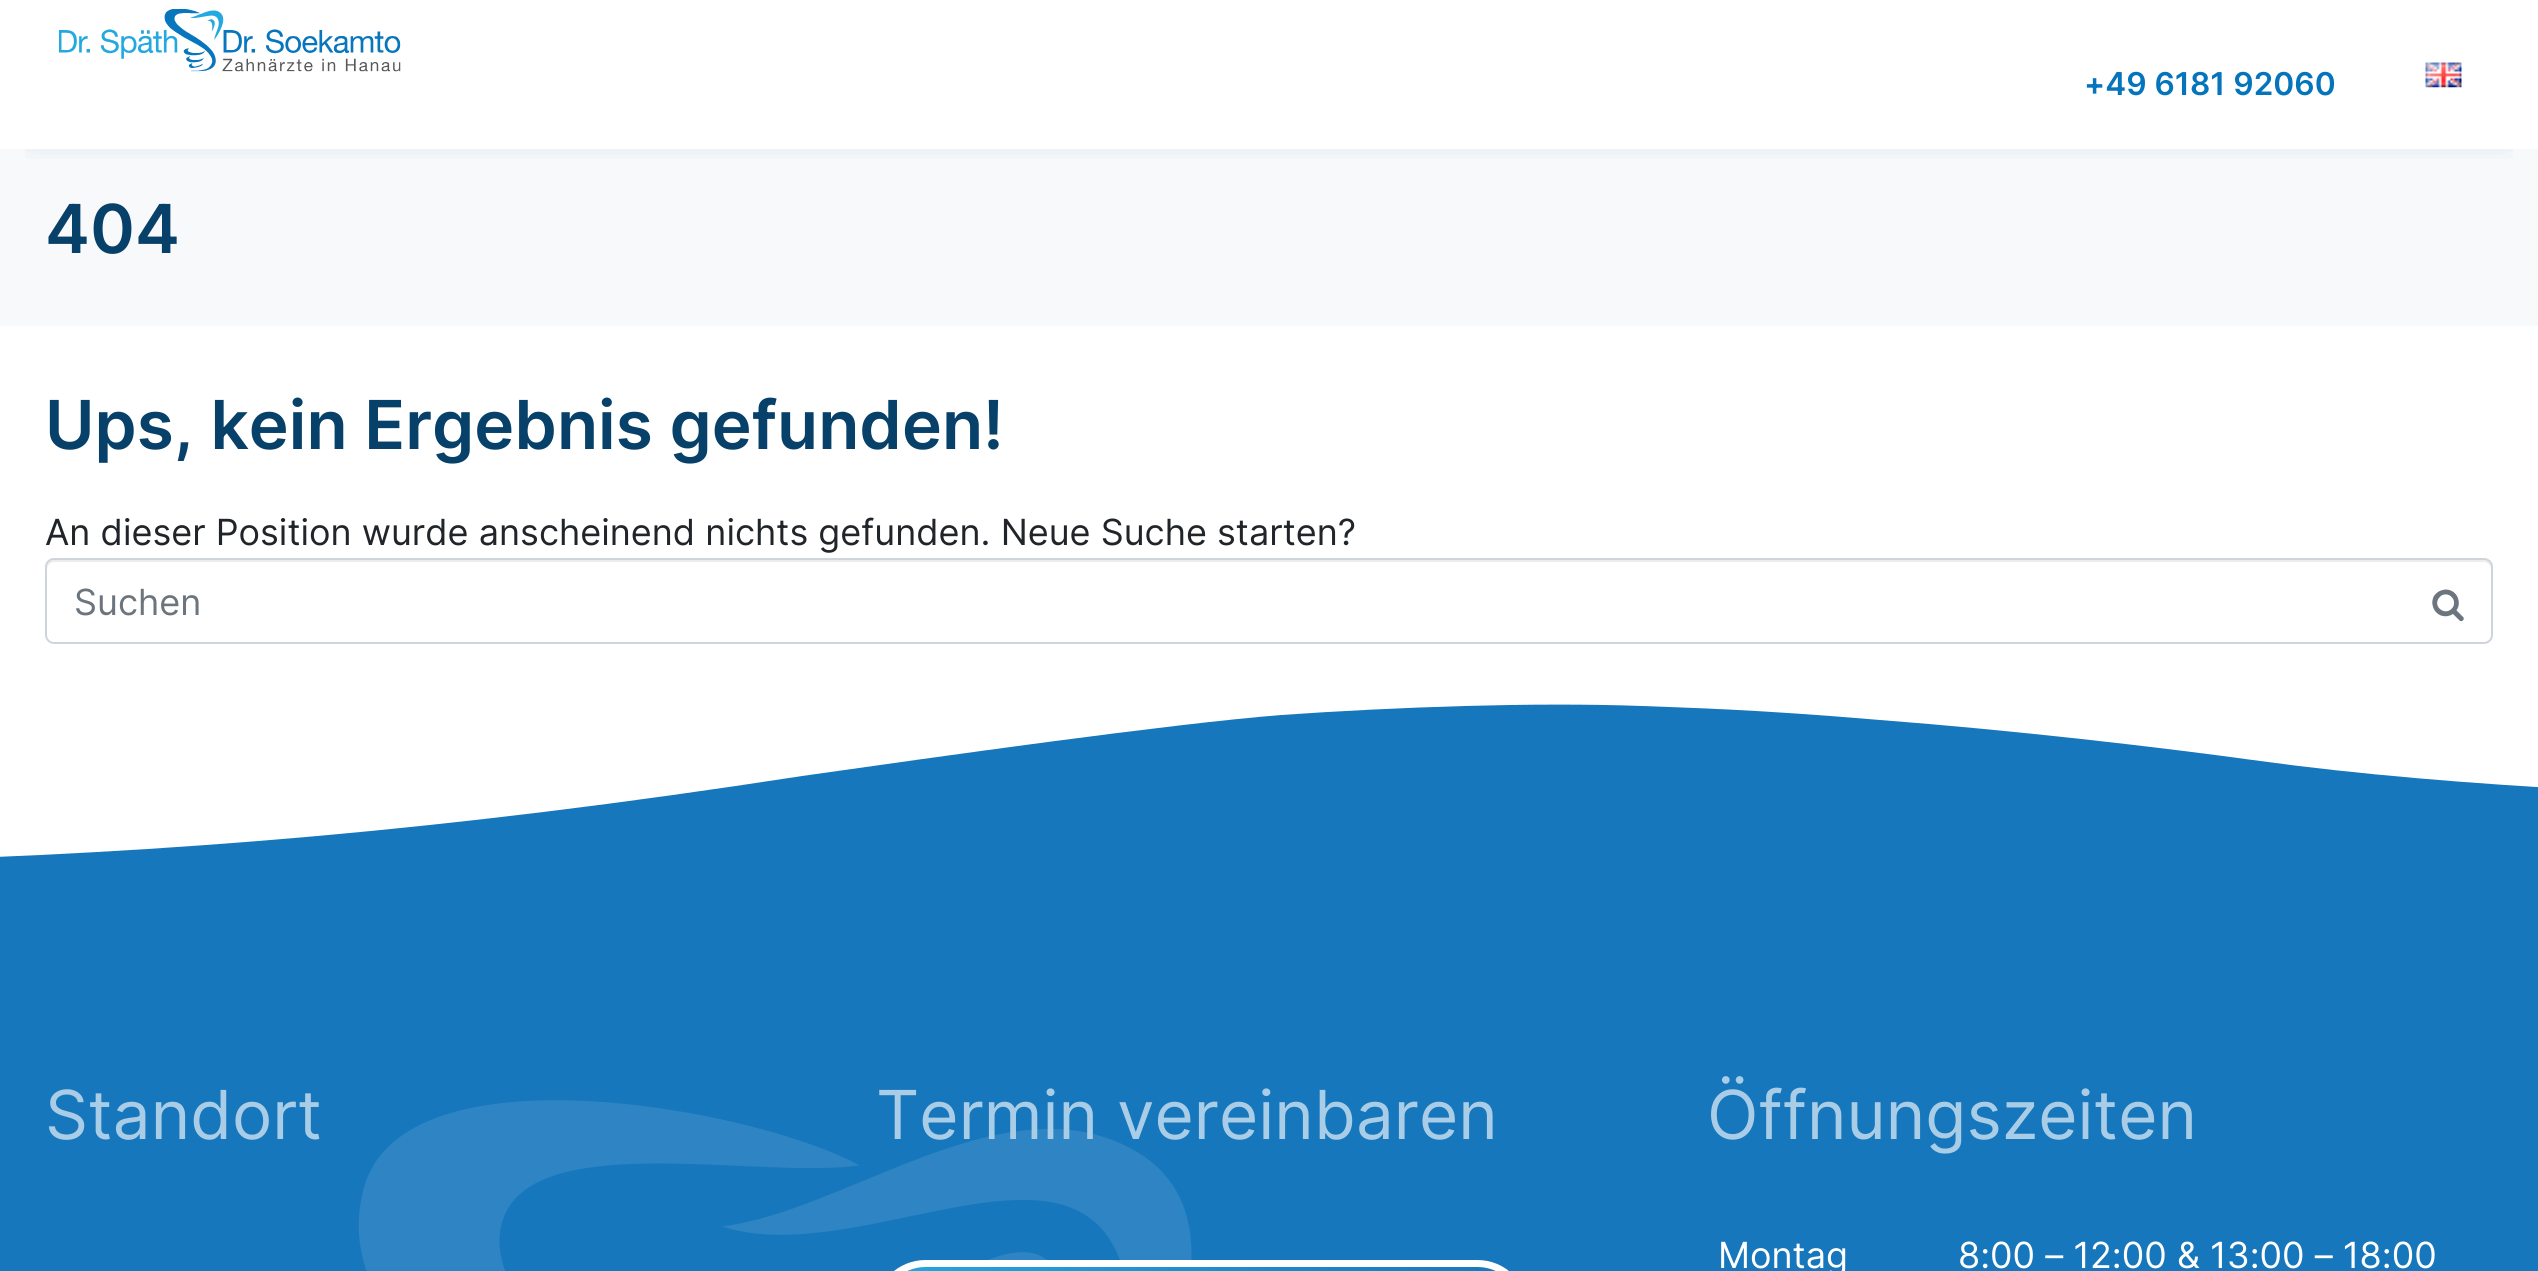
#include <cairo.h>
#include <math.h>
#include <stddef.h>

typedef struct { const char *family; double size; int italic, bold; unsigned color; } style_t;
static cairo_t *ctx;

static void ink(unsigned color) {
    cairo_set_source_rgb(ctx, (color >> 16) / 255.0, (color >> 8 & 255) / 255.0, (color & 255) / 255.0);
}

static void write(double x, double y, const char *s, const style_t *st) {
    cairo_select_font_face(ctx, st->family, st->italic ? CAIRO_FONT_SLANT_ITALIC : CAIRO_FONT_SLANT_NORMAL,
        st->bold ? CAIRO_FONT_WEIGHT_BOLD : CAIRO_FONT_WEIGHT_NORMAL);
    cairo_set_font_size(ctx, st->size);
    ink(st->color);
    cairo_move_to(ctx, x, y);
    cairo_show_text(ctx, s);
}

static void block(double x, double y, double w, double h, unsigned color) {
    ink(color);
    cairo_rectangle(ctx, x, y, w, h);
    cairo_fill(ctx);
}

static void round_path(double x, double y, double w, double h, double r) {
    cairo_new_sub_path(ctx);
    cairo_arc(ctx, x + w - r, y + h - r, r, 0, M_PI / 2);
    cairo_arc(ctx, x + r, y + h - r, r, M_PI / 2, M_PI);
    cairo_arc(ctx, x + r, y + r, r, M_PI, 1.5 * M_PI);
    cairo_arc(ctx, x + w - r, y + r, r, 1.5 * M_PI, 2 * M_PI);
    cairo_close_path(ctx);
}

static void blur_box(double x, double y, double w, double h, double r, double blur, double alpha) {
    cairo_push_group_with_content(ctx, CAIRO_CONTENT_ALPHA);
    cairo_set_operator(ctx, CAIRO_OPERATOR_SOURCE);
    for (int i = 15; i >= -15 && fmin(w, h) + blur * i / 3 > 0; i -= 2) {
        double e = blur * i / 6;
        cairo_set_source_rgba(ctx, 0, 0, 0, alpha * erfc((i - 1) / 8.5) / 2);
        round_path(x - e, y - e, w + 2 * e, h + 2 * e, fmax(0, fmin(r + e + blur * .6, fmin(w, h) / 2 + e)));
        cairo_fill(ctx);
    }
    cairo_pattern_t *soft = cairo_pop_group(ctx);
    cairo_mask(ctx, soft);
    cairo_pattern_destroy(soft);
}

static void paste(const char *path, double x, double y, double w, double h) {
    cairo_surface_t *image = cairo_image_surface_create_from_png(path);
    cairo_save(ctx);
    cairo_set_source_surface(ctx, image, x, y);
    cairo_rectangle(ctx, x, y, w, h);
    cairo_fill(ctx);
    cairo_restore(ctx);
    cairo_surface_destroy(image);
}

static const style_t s1 = {"Inter SemiBold", 31.5, 0, 0, 0x0474bc};
static const style_t s2 = {"Inter SemiBold", 67.5, 0, 0, 0x07416a};
static const style_t s3 = {"Inter", 36, 0, 0, 0x212529};
static const style_t s4 = {"Inter", 36, 0, 0, 0x6c757d};
static const style_t s5 = {"Inter", 67.5, 0, 0, 0xa9cde6};
static const style_t s6 = {"Inter", 36, 0, 0, 0xffffff};

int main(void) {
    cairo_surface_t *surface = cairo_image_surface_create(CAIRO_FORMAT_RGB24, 2538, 1271);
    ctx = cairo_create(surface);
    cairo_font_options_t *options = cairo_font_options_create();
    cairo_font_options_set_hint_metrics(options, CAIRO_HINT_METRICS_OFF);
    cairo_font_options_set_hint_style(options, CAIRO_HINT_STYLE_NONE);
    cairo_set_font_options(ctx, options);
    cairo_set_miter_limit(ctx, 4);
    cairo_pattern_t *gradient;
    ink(0xffffff);
    cairo_paint(ctx);
    block(0, 149, 2538, 177, 0xf8f9fa);
    cairo_save(ctx);
    cairo_rectangle(ctx, 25, 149, 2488, 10);
    cairo_clip(ctx);
    ink(0x1777bc);
    blur_box(34, -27, 2470, 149, 0, 18, 1);
    cairo_restore(ctx);
    gradient = cairo_pattern_create_linear(1269, -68, 1269, 149);
    cairo_pattern_add_color_stop_rgba(gradient, 0, 1, 1, 1, 0.86);
    cairo_pattern_add_color_stop_rgba(gradient, 1, 1, 1, 1, 1);
    cairo_set_source(ctx, gradient);
    cairo_pattern_destroy(gradient);
    cairo_rectangle(ctx, 25, 148, 2488, 1);
    cairo_fill(ctx);
    paste("pic1.png", 59, 9, 342, 63);
    write(2084, 95, "+49 6181 92060", &s1);
    paste("pic2.png", 2425, 62, 37, 26);
    write(45, 253, "404", &s2);
    write(45, 449, "Ups, kein Ergebnis gefunden!", &s2);
    write(45, 545, "An dieser Position wurde anscheinend nichts gefunden. Neue Suche starten?", &s3);
    ink(0xececec);
    cairo_new_path(ctx);
    cairo_move_to(ctx, 54, 562);
    cairo_line_to(ctx, 2484, 562);
    cairo_curve_to(ctx, 2488, 562, 2491, 566, 2491, 569);
    cairo_line_to(ctx, 2491, 567);
    cairo_curve_to(ctx, 2491, 563, 2488, 560, 2484, 560);
    cairo_line_to(ctx, 54, 560);
    cairo_curve_to(ctx, 50, 560, 47, 563, 47, 567);
    cairo_line_to(ctx, 47, 569);
    cairo_curve_to(ctx, 47, 566, 50, 562, 54, 562);
    cairo_close_path(ctx);
    cairo_fill(ctx);
    round_path(46, 559, 2446, 84, 8);
    ink(0xced4da);
    cairo_stroke(ctx);
    write(74, 615, "Suchen", &s4);
    paste("pic3.png", 2432, 589, 32, 33);
    block(0, 704, 2538, 567, 0x1777bc);
    ink(0xffffff);
    cairo_new_path(ctx);
    cairo_move_to(ctx, 1642, 706);
    cairo_curve_to(ctx, 1534, 702, 1396, 707, 1281, 715);
    cairo_curve_to(ctx, 1169, 724, 943, 756, 802, 776);
    cairo_curve_to(ctx, 440, 832, 163, 853, -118, 861);
    cairo_curve_to(ctx, -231, 865, -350, 867, -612, 857);
    cairo_curve_to(ctx, -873, 847, -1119, 813, -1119, 813);
    cairo_line_to(ctx, -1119, 695);
    cairo_line_to(ctx, 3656, 695);
    cairo_line_to(ctx, 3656, 747);
    cairo_curve_to(ctx, 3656, 747, 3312, 803, 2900, 799);
    cairo_curve_to(ctx, 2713, 798, 2457, 788, 2260, 761);
    cairo_curve_to(ctx, 2159, 747, 2011, 730, 1880, 720);
    cairo_curve_to(ctx, 1750, 709, 1691, 708, 1642, 706);
    cairo_close_path(ctx);
    cairo_fill(ctx);
    write(45, 1139, "Standort", &s5);
    paste("pic4.png", 358, 1100, 834, 171);
    write(876, 1139, "Termin vereinbaren", &s5);
    cairo_save(ctx);
    round_path(875, 1260, 653, 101, 50.5);
    cairo_clip(ctx);
    gradient = cairo_pattern_create_linear(1519, 1255, 884, 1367);
    cairo_pattern_add_color_stop_rgba(gradient, 0, 0.09, 0.467, 0.737, 1);
    cairo_pattern_add_color_stop_rgba(gradient, 1, 0.137, 0.659, 0.878, 1);
    cairo_set_source(ctx, gradient);
    cairo_pattern_destroy(gradient);
    cairo_rectangle(ctx, 894, 1267, 615, 4);
    cairo_fill(ctx);
    cairo_restore(ctx);
    round_path(878.5, 1263.5, 646, 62, 47);
    ink(0xffffff);
    cairo_set_line_width(ctx, 7);
    cairo_stroke(ctx);
    write(1707, 1139, "Öffnungszeiten", &s5);
    write(1718, 1268, "Montag", &s6);
    write(1958, 1268, "8:00 – 12:00 & 13:00 – 18:00", &s6);
    cairo_surface_write_to_png(surface, "screenshot.png");
    cairo_font_options_destroy(options);
    cairo_destroy(ctx);
    cairo_surface_destroy(surface);
    return 0;
}
